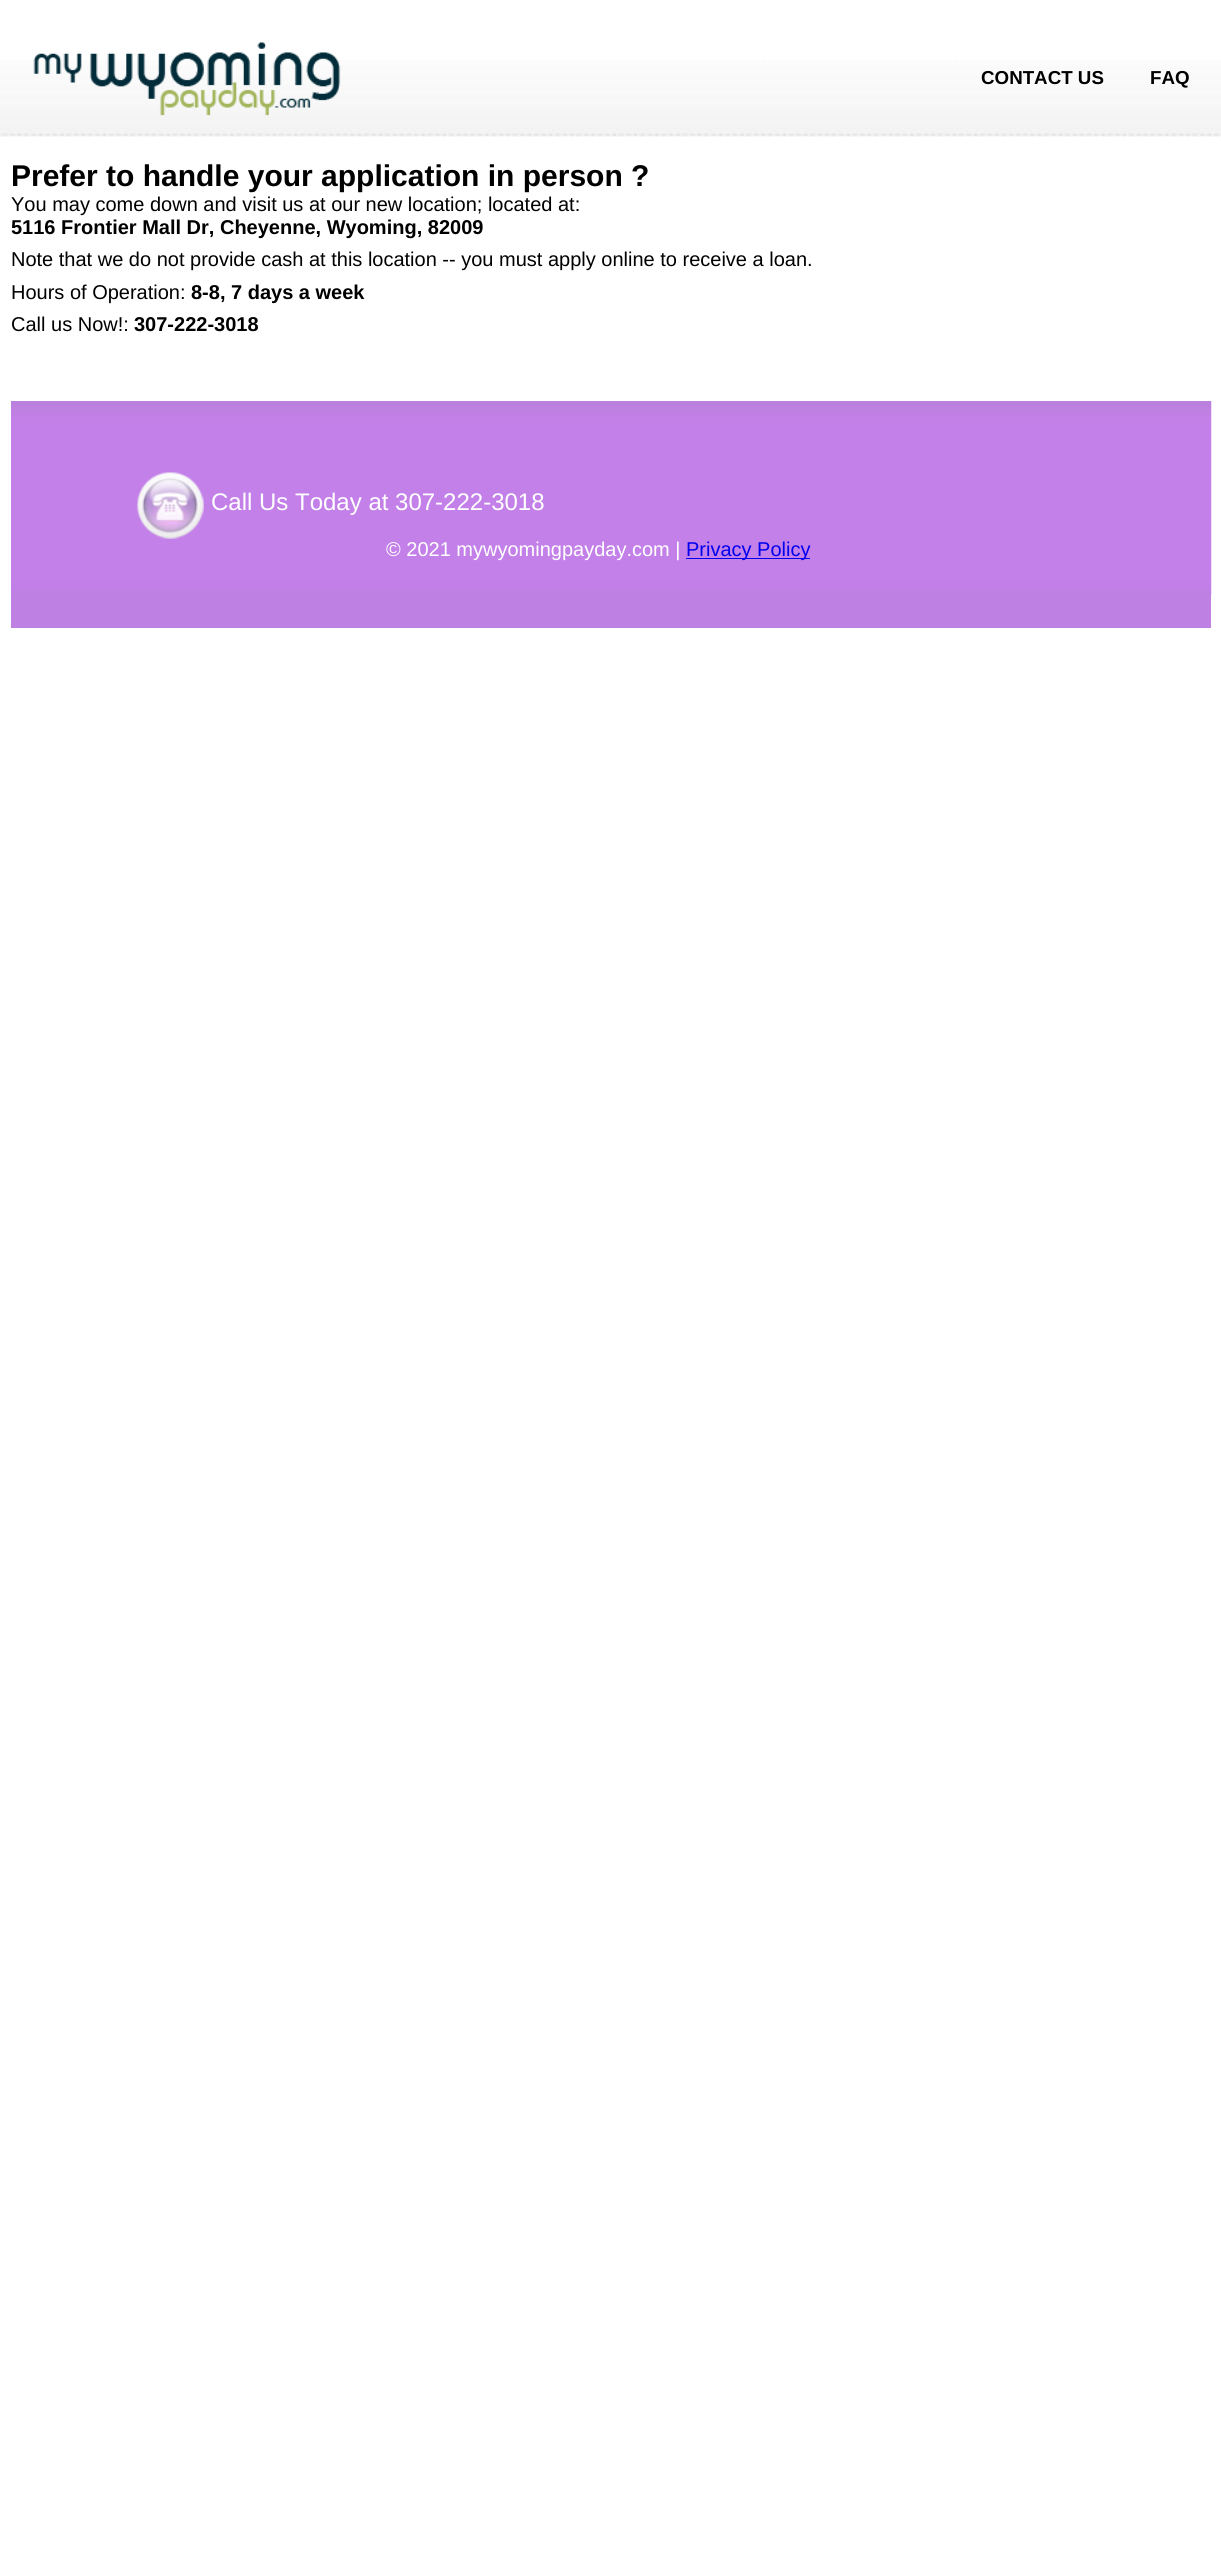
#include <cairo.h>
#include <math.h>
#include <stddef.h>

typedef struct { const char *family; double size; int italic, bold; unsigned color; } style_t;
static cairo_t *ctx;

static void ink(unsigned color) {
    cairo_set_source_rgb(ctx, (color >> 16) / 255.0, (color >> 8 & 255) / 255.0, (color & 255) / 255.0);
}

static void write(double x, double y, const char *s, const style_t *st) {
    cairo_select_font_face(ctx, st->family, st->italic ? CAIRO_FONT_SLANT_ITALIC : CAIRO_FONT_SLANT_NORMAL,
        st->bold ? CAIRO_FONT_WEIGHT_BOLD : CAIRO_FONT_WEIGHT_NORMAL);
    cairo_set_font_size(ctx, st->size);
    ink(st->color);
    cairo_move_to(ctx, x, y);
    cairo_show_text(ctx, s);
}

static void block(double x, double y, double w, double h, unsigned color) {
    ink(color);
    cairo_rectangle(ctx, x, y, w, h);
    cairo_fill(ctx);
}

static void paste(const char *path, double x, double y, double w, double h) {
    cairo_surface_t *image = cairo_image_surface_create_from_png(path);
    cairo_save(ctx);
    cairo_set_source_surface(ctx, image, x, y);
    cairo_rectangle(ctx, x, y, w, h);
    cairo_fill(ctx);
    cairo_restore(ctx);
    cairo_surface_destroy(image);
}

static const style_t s1 = {"Liberation Sans", 18.75, 0, 1, 0x000000};
static const style_t s2 = {"Liberation Sans", 30, 0, 1, 0x000000};
static const style_t s3 = {"Liberation Sans", 20, 0, 0, 0x000000};
static const style_t s4 = {"Liberation Sans", 20, 0, 1, 0x000000};
static const style_t s5 = {"Liberation Sans", 24, 0, 0, 0xffffff};
static const style_t s6 = {"Liberation Sans", 20, 0, 0, 0xffffff};
static const style_t s7 = {"Liberation Sans", 20, 0, 0, 0x0000ee};

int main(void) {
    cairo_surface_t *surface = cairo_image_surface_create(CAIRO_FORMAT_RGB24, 1221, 2567);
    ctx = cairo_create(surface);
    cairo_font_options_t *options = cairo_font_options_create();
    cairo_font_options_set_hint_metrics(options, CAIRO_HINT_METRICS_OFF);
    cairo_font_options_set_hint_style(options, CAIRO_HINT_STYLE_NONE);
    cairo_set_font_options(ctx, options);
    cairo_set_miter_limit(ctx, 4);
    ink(0xffffff);
    cairo_paint(ctx);
    paste("pic1.png", 0, 60, 1221, 77);
    paste("pic2.png", 33, 42, 308, 74);
    write(981, 84, "CONTACT US", &s1);
    write(1150, 84, "FAQ", &s1);
    write(11, 186, "Prefer to handle your application in person ?", &s2);
    write(11, 211, "You may come down and visit us at our new location; located at:", &s3);
    write(11, 234, "5116 Frontier Mall Dr, Cheyenne, Wyoming, 82009", &s4);
    write(11, 266, "Note that we do not provide cash at this location -- you must apply online to receive a loan.", &s3);
    write(11, 299, "Hours of Operation:", &s3);
    write(191, 299, "8-8, 7 days a week", &s4);
    write(11, 331, "Call us Now!:", &s3);
    write(134, 331, "307-222-3018", &s4);
    block(11, 401, 1200, 227, 0xbf80e4);
    paste("pic3.png", 11, 401, 1201, 194);
    paste("pic4.png", 137, 472, 67, 67);
    write(211, 510, "Call Us Today at 307-222-3018", &s5);
    write(386, 556, "© 2021 mywyomingpayday.com |", &s6);
    block(686, 558, 124, 1, 0x0000ee);
    write(686, 556, "Privacy Policy", &s7);
    cairo_surface_write_to_png(surface, "screenshot.png");
    cairo_font_options_destroy(options);
    cairo_destroy(ctx);
    cairo_surface_destroy(surface);
    return 0;
}
